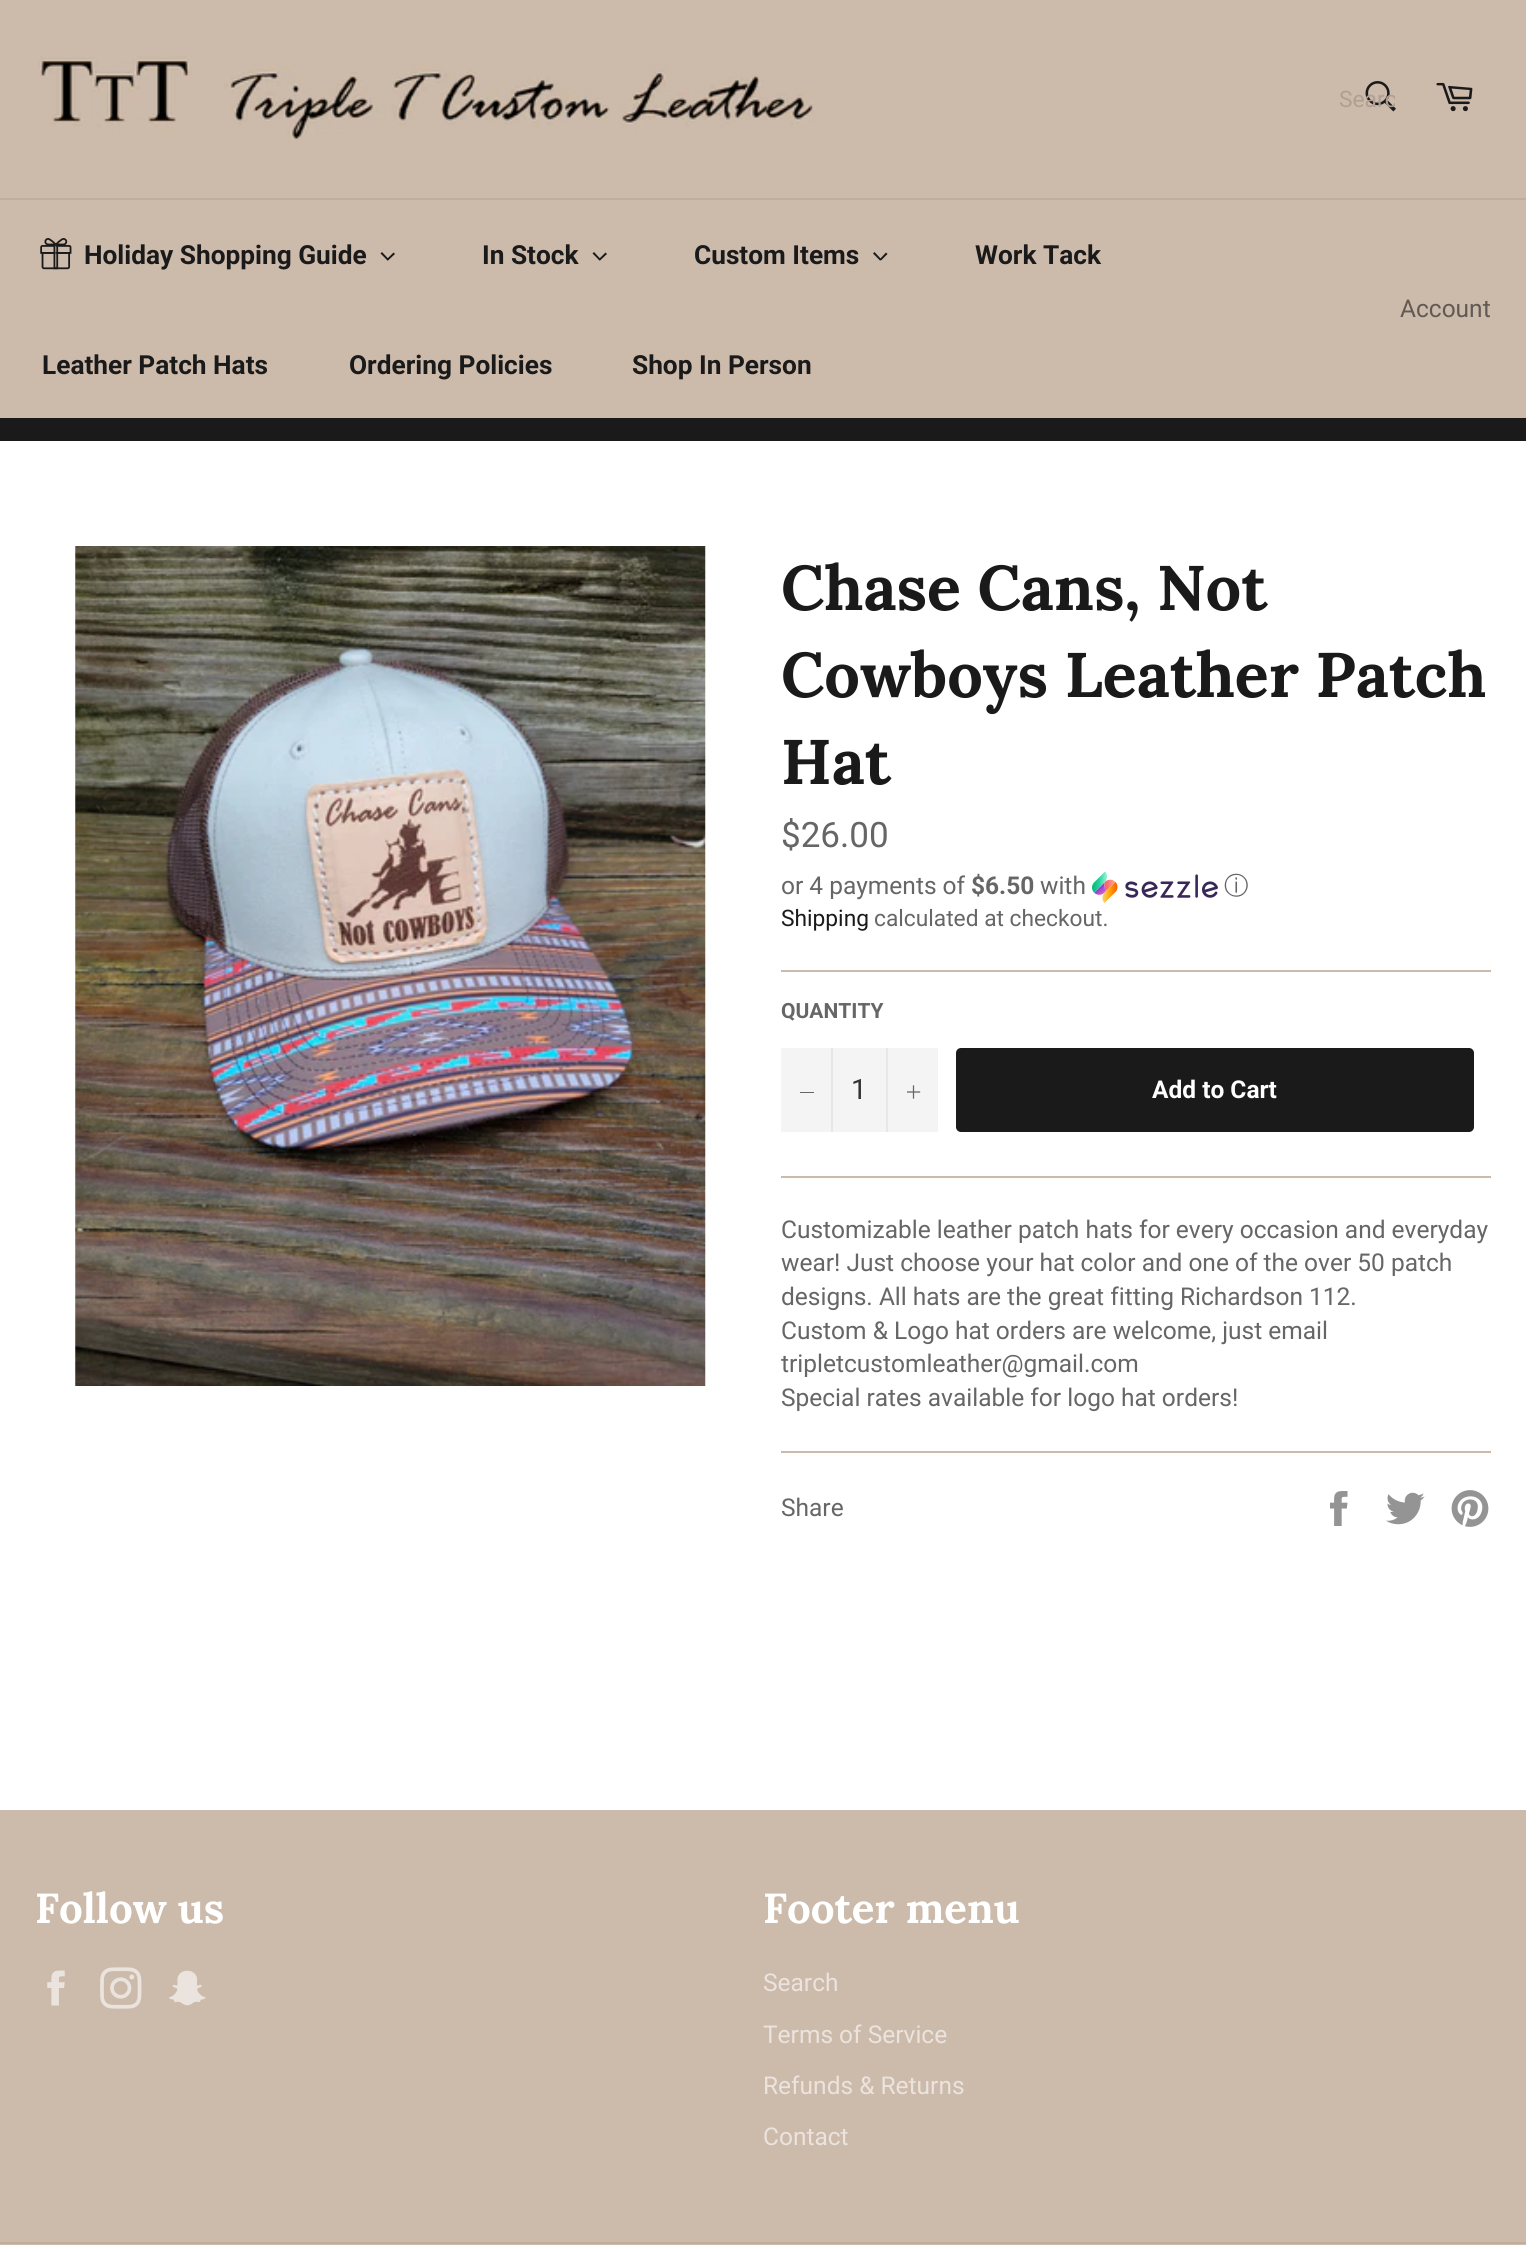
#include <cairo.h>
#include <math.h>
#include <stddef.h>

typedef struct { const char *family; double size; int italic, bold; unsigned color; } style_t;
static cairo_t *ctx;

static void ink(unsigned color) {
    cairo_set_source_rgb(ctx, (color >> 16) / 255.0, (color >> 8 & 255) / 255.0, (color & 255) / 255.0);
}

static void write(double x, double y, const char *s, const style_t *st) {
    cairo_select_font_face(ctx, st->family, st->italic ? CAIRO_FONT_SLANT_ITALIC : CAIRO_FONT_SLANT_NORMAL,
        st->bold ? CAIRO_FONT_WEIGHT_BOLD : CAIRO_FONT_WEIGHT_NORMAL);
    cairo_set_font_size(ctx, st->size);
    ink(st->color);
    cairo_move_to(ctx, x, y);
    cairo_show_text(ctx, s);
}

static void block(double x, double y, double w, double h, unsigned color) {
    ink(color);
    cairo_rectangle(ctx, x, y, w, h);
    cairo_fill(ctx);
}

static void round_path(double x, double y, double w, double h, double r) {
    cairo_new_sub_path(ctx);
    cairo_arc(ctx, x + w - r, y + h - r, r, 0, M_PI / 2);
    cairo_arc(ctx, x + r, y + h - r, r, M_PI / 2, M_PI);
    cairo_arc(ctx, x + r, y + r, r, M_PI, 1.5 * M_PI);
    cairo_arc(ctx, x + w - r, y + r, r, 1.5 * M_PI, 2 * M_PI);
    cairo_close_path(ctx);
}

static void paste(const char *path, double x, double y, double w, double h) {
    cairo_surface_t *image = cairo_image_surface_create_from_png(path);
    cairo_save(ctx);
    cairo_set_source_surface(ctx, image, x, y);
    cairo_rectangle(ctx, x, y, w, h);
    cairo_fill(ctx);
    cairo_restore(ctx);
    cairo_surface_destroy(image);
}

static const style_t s1 = {"Roboto", 22.75, 0, 0, 0xafa093};
static const style_t s2 = {"Roboto", 26.25, 0, 1, 0x1a1a1a};
static const style_t s3 = {"Roboto", 24.5, 0, 0, 0x615a54};
static const style_t s4 = {"Lora", 63, 0, 1, 0x1a1a1a};
static const style_t s5 = {"Roboto", 35, 0, 0, 0x666666};
static const style_t s6 = {"Roboto", 24.5, 0, 0, 0x666666};
static const style_t s7 = {"Roboto", 24.5, 0, 1, 0x666666};
static const style_t s8 = {"WenQuanYi Zen Hei Medium", 24.5, 0, 0, 0x666666};
static const style_t s9 = {"Roboto", 22.75, 0, 0, 0x1a1a1a};
static const style_t s10 = {"Roboto", 22.75, 0, 0, 0x666666};
static const style_t s11 = {"Roboto", 21, 0, 1, 0x666666};
static const style_t s12 = {"Roboto", 28, 0, 0, 0x333333};
static const style_t s13 = {"Roboto", 24.5, 0, 1, 0xffffff};
static const style_t s14 = {"Lora", 42, 0, 1, 0xffffff};
static const style_t s15 = {"Roboto", 24.5, 0, 0, 0xebe3dd};

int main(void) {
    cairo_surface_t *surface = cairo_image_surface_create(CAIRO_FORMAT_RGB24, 1526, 2245);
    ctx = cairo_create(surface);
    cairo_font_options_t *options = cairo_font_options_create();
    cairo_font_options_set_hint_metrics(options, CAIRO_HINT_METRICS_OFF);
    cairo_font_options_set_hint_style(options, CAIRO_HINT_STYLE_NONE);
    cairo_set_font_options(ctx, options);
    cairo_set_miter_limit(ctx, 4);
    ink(0xccbaab);
    cairo_paint(ctx);
    paste("pic1.png", 38, 56, 776, 84);
    paste("pic2.png", 1365, 81, 31, 31);
    cairo_save(ctx);
    cairo_rectangle(ctx, 1339, 86, 56, 26);
    cairo_clip(ctx);
    write(1339, 107, "Searc", &s1);
    cairo_restore(ctx);
    paste("pic3.png", 1436, 82, 37, 30);
    block(0, 198, 1526, 2, 0xc2ad9b);
    paste("pic4.png", 40, 238, 32, 32);
    write(84, 264, "Holiday Shopping Guide", &s2);
    cairo_new_path(ctx);
    cairo_move_to(ctx, 393.5, 252.5);
    cairo_line_to(ctx, 395, 254);
    cairo_line_to(ctx, 388, 260.5);
    cairo_line_to(ctx, 386.5, 259.5);
    cairo_close_path(ctx);
    cairo_fill(ctx);
    cairo_new_path(ctx);
    cairo_move_to(ctx, 382, 252);
    cairo_line_to(ctx, 389, 259.5);
    cairo_line_to(ctx, 387.5, 260.5);
    cairo_line_to(ctx, 380.5, 253.5);
    cairo_close_path(ctx);
    cairo_fill(ctx);
    write(482, 264, "In Stock", &s2);
    cairo_new_path(ctx);
    cairo_move_to(ctx, 605.5, 252.5);
    cairo_line_to(ctx, 607, 254);
    cairo_line_to(ctx, 600, 260.5);
    cairo_line_to(ctx, 598.5, 259.5);
    cairo_close_path(ctx);
    cairo_fill(ctx);
    cairo_new_path(ctx);
    cairo_move_to(ctx, 594, 252);
    cairo_line_to(ctx, 601, 259.5);
    cairo_line_to(ctx, 599.5, 260.5);
    cairo_line_to(ctx, 592.5, 253.5);
    cairo_close_path(ctx);
    cairo_fill(ctx);
    write(694, 264, "Custom Items", &s2);
    cairo_new_path(ctx);
    cairo_move_to(ctx, 886, 252.5);
    cairo_line_to(ctx, 887.5, 254);
    cairo_line_to(ctx, 881, 260.5);
    cairo_line_to(ctx, 879.5, 259.5);
    cairo_close_path(ctx);
    cairo_fill(ctx);
    cairo_new_path(ctx);
    cairo_move_to(ctx, 874.5, 252);
    cairo_line_to(ctx, 881.5, 259.5);
    cairo_line_to(ctx, 880, 260.5);
    cairo_line_to(ctx, 873, 253.5);
    cairo_close_path(ctx);
    cairo_fill(ctx);
    write(975, 264, "Work Tack", &s2);
    write(42, 374, "Leather Patch Hats", &s2);
    write(349, 374, "Ordering Policies", &s2);
    write(632, 374, "Shop In Person", &s2);
    write(1400, 317, "Account", &s3);
    block(0, 418, 1526, 23, 0x1a1a1a);
    block(0, 441, 1526, 1369, 0xffffff);
    paste("pic5.png", 75, 546, 631, 840);
    write(781, 610, "Chase Cans, Not", &s4);
    write(781, 697, "Cowboys Leather Patch", &s4);
    write(781, 784, "Hat", &s4);
    write(781, 847, "$26.00", &s5);
    write(781, 894, "or 4 payments of", &s6);
    write(971, 894, "$6.50", &s7);
    write(1040, 894, "with", &s6);
    paste("pic6.png", 1092, 872, 126, 31);
    write(1224, 894, "ⓘ", &s8);
    write(781, 926, "Shipping", &s9);
    write(874, 926, "calculated at checkout.", &s10);
    block(781, 970, 710, 2, 0xccbaab);
    write(781, 1018, "QUANTITY", &s11);
    block(781, 1048, 157, 84, 0xf4f4f4);
    block(831, 1048, 2, 84, 0xe7e7e7);
    block(800, 1092, 14, 1, 0x666666);
    write(851, 1099, "1", &s12);
    block(886, 1048, 2, 84, 0xe7e7e7);
    paste("pic7.png", 907, 1085, 14, 14);
    ink(0x1a1a1a);
    round_path(956, 1048, 518, 84, 5);
    cairo_fill(ctx);
    write(1152, 1098, "Add to Cart", &s13);
    block(781, 1176, 710, 2, 0xccbaab);
    write(781, 1238, "Customizable leather patch hats for every occasion and everyday", &s6);
    write(781, 1271, "wear! Just choose your hat color and one of the over 50 patch", &s6);
    write(781, 1305, "designs. All hats are the great fitting Richardson 112.", &s6);
    write(781, 1339, "Custom & Logo hat orders are welcome, just email", &s6);
    write(781, 1372, "tripletcustomleather@gmail.com", &s6);
    write(781, 1406, "Special rates available for logo hat orders!", &s6);
    block(781, 1451, 710, 2, 0xccbaab);
    write(781, 1516, "Share", &s6);
    paste("pic8.png", 1330, 1491, 18, 35);
    paste("pic9.png", 1386, 1492, 39, 33);
    paste("pic10.png", 1451, 1490, 38, 37);
    write(35, 1923, "Follow us", &s14);
    paste("pic11.png", 47, 1970, 18, 36);
    paste("pic12.png", 100, 1967, 42, 42);
    paste("pic13.png", 169, 1970, 37, 36);
    write(763, 1923, "Footer menu", &s14);
    write(763, 1991, "Search", &s15);
    write(763, 2043, "Terms of Service", &s15);
    write(763, 2094, "Refunds & Returns", &s15);
    write(763, 2145, "Contact", &s15);
    block(0, 2242, 1526, 2, 0xc2ad9b);
    cairo_surface_write_to_png(surface, "screenshot.png");
    cairo_font_options_destroy(options);
    cairo_destroy(ctx);
    cairo_surface_destroy(surface);
    return 0;
}
